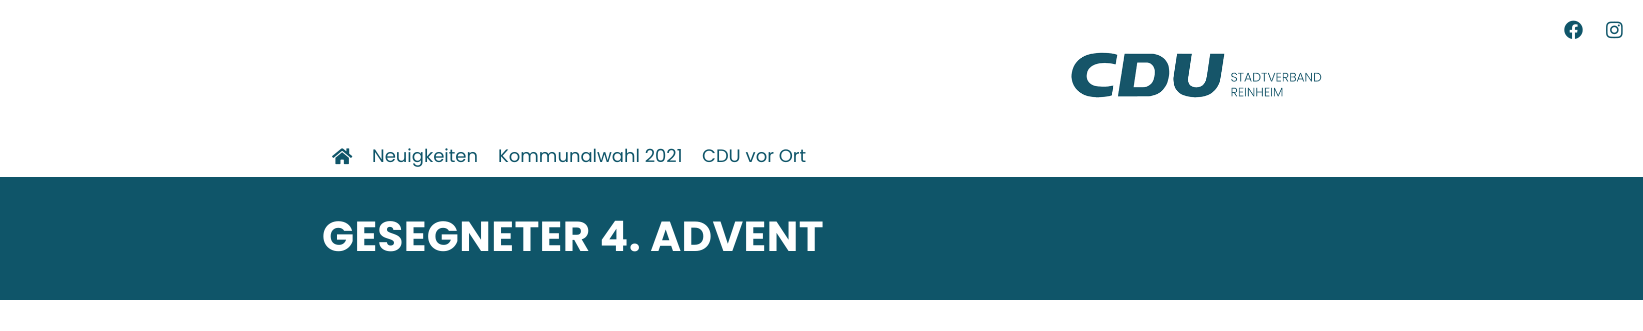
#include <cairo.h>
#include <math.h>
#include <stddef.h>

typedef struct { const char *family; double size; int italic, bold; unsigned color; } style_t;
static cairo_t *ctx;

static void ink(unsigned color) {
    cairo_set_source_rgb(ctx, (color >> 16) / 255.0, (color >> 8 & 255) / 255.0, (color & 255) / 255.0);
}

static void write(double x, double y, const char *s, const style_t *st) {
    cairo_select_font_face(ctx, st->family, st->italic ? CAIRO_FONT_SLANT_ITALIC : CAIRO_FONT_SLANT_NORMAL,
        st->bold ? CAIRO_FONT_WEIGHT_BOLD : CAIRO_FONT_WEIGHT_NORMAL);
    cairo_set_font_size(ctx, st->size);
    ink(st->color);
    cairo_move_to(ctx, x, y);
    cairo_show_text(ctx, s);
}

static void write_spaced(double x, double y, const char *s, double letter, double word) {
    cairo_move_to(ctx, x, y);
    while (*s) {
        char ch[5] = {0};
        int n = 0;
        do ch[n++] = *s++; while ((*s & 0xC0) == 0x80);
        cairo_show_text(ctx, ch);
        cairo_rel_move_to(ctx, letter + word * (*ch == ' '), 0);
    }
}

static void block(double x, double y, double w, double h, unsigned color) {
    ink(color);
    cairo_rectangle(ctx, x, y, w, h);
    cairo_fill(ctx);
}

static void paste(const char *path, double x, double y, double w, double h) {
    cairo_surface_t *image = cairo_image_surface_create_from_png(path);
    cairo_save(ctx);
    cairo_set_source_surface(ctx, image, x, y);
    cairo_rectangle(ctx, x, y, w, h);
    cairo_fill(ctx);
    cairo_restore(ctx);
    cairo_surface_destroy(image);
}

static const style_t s1 = {"Poppins", 18, 0, 0, 0x0f5569};

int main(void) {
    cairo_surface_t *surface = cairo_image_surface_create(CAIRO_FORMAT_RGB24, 1643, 331);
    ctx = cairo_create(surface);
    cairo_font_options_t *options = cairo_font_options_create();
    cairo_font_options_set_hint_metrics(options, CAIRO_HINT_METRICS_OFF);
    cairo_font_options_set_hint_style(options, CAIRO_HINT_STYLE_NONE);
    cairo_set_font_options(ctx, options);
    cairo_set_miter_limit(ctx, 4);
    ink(0xffffff);
    cairo_paint(ctx);
    paste("pic1.png", 1564, 20, 19, 19);
    paste("pic2.png", 1606, 21, 17, 18);
    paste("pic3.png", 1071, 52, 251, 46);
    paste("pic4.png", 332, 148, 21, 17);
    write(372, 162, "Neuigkeiten", &s1);
    write(498, 162, "Kommunalwahl 2021", &s1);
    write(702, 162, "CDU vor Ort", &s1);
    block(0, 177, 1643, 123, 0x0f5569);
    cairo_select_font_face(ctx, "Poppins", CAIRO_FONT_SLANT_NORMAL, CAIRO_FONT_WEIGHT_BOLD);
    cairo_set_font_size(ctx, 42);
    ink(0xffffff);
    write_spaced(322, 251, "GESEGNETER 4. ADVENT", 0.4, 0);
    cairo_surface_write_to_png(surface, "screenshot.png");
    cairo_font_options_destroy(options);
    cairo_destroy(ctx);
    cairo_surface_destroy(surface);
    return 0;
}
